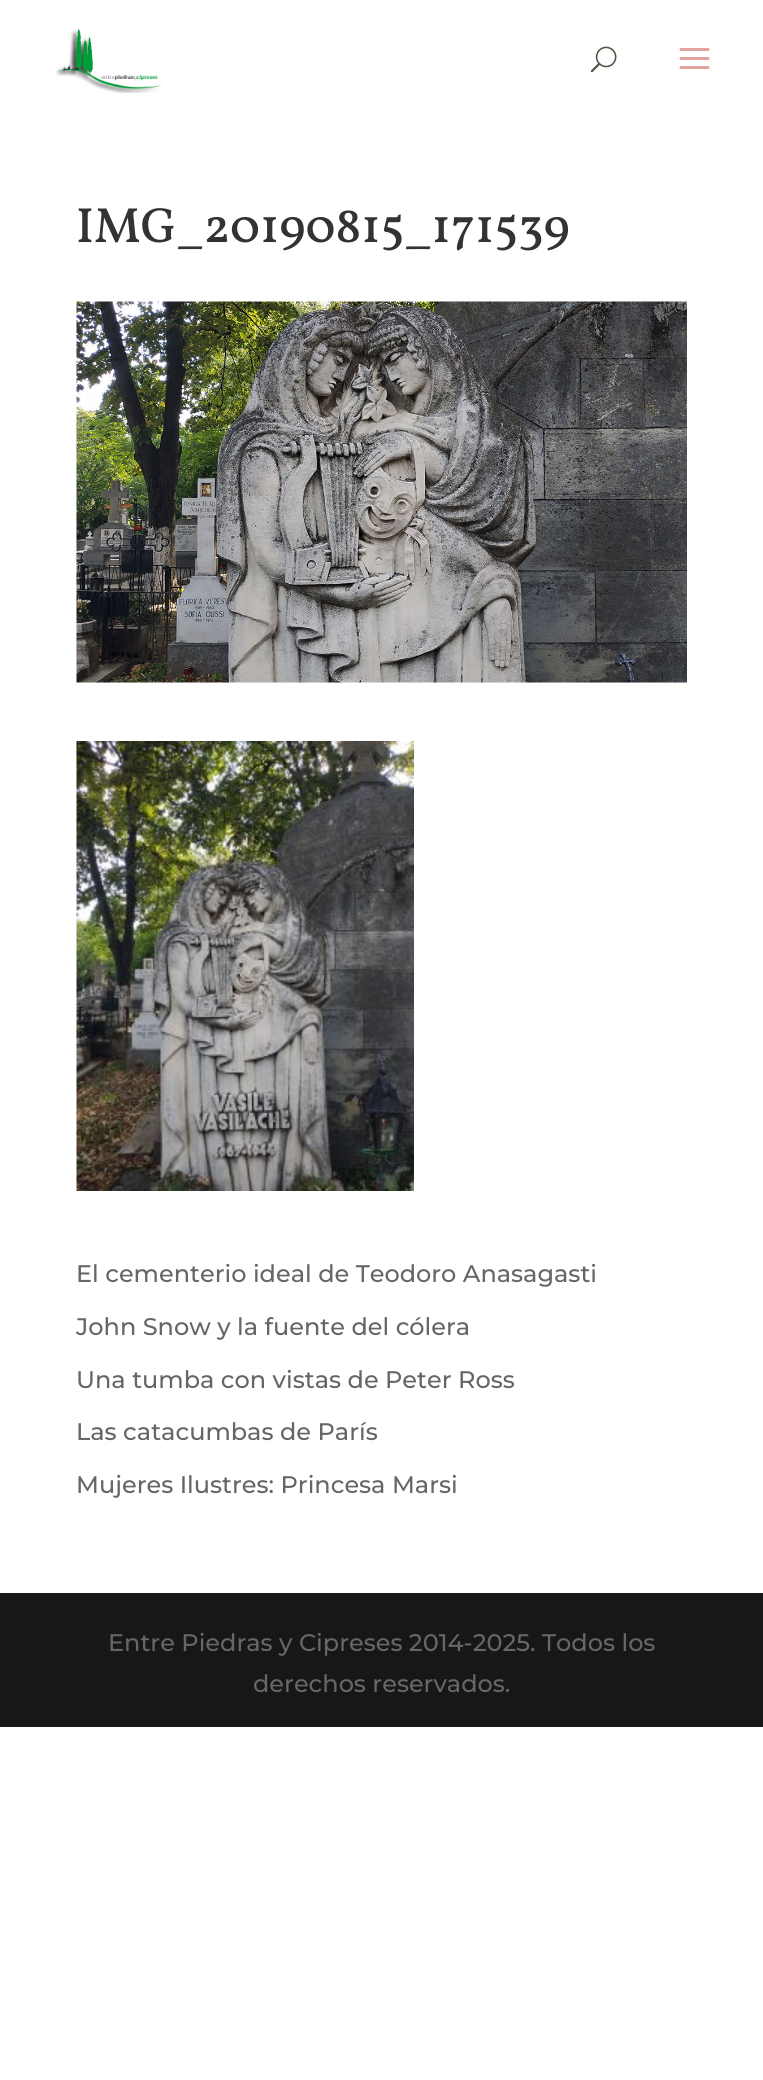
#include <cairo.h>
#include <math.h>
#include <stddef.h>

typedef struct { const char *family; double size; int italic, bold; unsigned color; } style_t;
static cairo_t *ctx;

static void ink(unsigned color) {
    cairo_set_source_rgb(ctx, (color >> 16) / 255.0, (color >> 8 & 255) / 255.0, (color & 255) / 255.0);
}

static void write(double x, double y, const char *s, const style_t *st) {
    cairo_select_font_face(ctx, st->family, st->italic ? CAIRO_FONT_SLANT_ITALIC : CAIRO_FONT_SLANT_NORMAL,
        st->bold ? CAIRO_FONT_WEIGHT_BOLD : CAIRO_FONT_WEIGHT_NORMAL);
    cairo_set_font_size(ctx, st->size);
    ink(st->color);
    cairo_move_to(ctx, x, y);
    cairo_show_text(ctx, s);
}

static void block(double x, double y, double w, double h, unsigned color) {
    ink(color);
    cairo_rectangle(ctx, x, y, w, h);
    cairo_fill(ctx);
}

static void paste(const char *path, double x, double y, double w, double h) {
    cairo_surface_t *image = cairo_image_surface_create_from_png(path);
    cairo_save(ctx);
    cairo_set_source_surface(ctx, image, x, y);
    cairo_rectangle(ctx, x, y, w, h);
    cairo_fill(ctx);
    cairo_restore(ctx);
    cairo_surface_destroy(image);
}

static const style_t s1 = {"Vollkorn Medium", 49.5, 0, 0, 0x333333};
static const style_t s2 = {"Montserrat Medium", 24, 0, 0, 0x666666};

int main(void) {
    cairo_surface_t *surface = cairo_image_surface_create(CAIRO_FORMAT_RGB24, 763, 2080);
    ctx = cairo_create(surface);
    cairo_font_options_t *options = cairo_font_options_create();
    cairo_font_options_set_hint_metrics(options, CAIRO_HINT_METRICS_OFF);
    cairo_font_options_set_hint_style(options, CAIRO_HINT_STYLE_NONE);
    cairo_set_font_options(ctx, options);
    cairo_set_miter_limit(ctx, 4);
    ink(0xffffff);
    cairo_paint(ctx);
    paste("pic1.png", 55, 28, 107, 65);
    paste("pic2.png", 590, 46, 27, 27);
    paste("pic3.png", 679, 48, 31, 21);
    write(76, 242, "IMG_20190815_171539", &s1);
    paste("pic4.png", 76, 301, 611, 382);
    paste("pic5.png", 76, 741, 338, 450);
    write(76, 1282, "El cementerio ideal de Teodoro Anasagasti", &s2);
    write(76, 1335, "John Snow y la fuente del cólera", &s2);
    write(76, 1388, "Una tumba con vistas de Peter Ross", &s2);
    write(76, 1440, "Las catacumbas de París", &s2);
    write(76, 1493, "Mujeres Ilustres: Princesa Marsi", &s2);
    block(0, 1593, 763, 134, 0x171717);
    write(108, 1651, "Entre Piedras y Cipreses 2014-2025. Todos los", &s2);
    write(253, 1692, "derechos reservados.", &s2);
    cairo_surface_write_to_png(surface, "screenshot.png");
    cairo_font_options_destroy(options);
    cairo_destroy(ctx);
    cairo_surface_destroy(surface);
    return 0;
}
